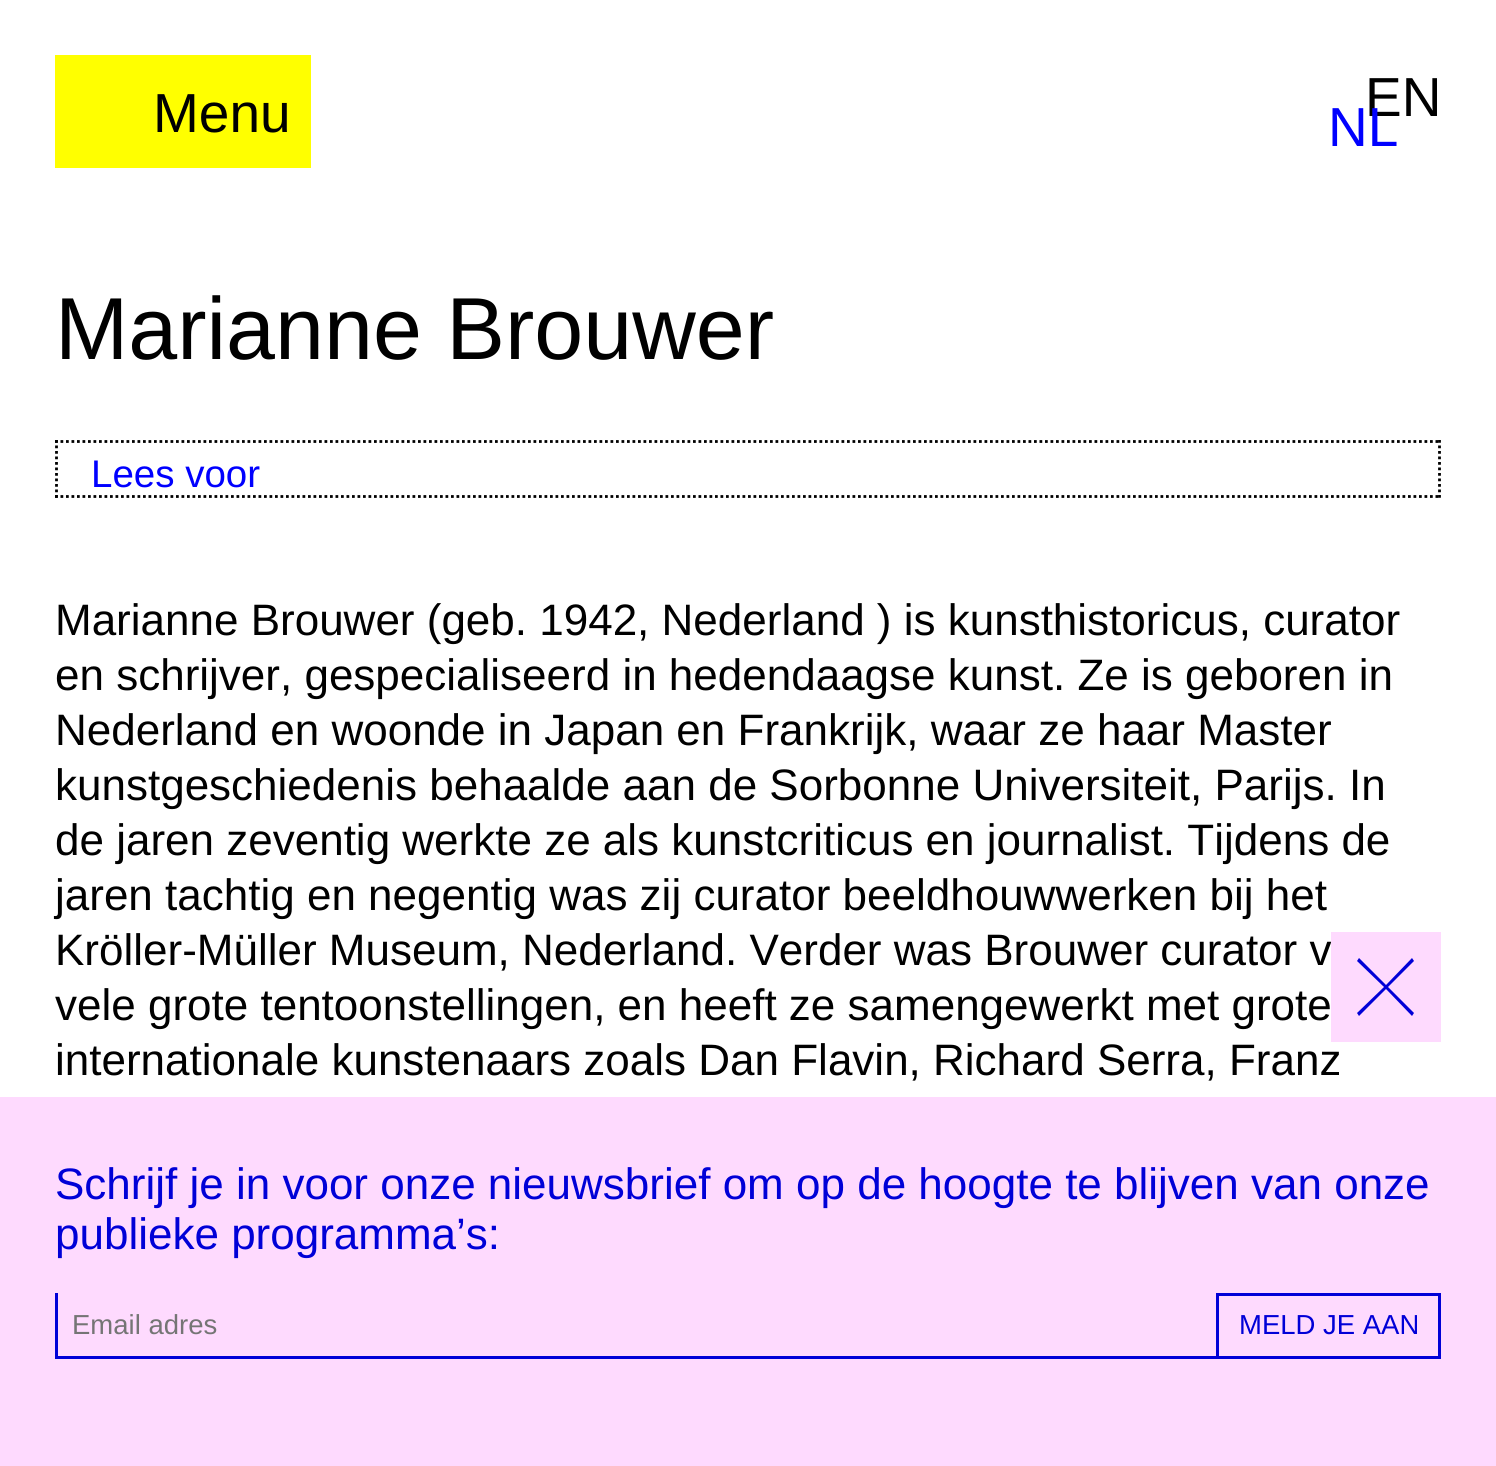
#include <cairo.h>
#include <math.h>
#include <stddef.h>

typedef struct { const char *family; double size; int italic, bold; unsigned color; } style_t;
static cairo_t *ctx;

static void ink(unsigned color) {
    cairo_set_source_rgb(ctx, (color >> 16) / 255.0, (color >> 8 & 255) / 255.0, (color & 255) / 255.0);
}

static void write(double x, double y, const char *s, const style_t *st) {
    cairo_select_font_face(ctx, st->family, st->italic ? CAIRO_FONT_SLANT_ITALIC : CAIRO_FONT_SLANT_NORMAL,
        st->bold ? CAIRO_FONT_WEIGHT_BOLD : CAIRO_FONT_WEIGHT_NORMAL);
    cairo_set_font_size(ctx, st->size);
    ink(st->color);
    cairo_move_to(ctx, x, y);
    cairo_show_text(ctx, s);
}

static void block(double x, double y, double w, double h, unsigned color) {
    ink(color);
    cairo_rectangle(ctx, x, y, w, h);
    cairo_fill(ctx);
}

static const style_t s1 = {"Liberation Sans", 55, 0, 0, 0x000000};
static const style_t s2 = {"Liberation Sans", 55, 0, 0, 0x0000ff};
static const style_t s3 = {"Liberation Sans", 88, 0, 0, 0x000000};
static const style_t s4 = {"Liberation Sans", 38.5, 0, 0, 0x0000ff};
static const style_t s5 = {"Liberation Sans", 44, 0, 0, 0x000000};
static const style_t s6 = {"Liberation Sans", 44, 0, 0, 0x0000d7};
static const style_t s7 = {"Liberation Sans", 27.5, 0, 0, 0x757575};
static const style_t s8 = {"Liberation Sans", 27.5, 0, 0, 0x0000d7};

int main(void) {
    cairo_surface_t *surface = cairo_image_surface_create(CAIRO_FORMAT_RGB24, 1496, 1466);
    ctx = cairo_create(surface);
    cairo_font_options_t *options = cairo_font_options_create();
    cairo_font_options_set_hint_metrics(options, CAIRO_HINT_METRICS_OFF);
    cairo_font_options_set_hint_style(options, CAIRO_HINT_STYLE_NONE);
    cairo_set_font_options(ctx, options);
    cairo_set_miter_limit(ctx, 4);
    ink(0xffffff);
    cairo_paint(ctx);
    block(55, 55, 256, 113, 0xffff00);
    write(153, 132, "Menu", &s1);
    write(1365, 116, "EN", &s1);
    write(1328, 146, "NL", &s2);
    write(55, 359, "Marianne Brouwer", &s3);
    cairo_new_path(ctx);
    cairo_move_to(ctx, 55, 441.5);
    cairo_line_to(ctx, 1441, 441.5);
    cairo_set_line_width(ctx, 2.8);
    cairo_set_dash(ctx, (double[]){2.75, 2.75}, 2, 0);
    cairo_stroke(ctx);
    cairo_new_path(ctx);
    cairo_move_to(ctx, 1439.5, 440);
    cairo_line_to(ctx, 1439.5, 498);
    cairo_stroke(ctx);
    cairo_new_path(ctx);
    cairo_move_to(ctx, 55, 496.5);
    cairo_line_to(ctx, 1441, 496.5);
    cairo_stroke(ctx);
    cairo_new_path(ctx);
    cairo_move_to(ctx, 56.5, 440);
    cairo_line_to(ctx, 56.5, 498);
    cairo_stroke(ctx);
    write(91, 487, "Lees voor", &s4);
    write(55, 635, "Marianne Brouwer (geb. 1942, Nederland ) is kunsthistoricus, curator", &s5);
    write(55, 690, "en schrijver, gespecialiseerd in hedendaagse kunst. Ze is geboren in", &s5);
    write(55, 745, "Nederland en woonde in Japan en Frankrijk, waar ze haar Master", &s5);
    write(55, 800, "kunstgeschiedenis behaalde aan de Sorbonne Universiteit, Parijs. In", &s5);
    write(55, 855, "de jaren zeventig werkte ze als kunstcriticus en journalist. Tijdens de", &s5);
    write(55, 910, "jaren tachtig en negentig was zij curator beeldhouwwerken bij het", &s5);
    write(55, 965, "Kröller-Müller Museum, Nederland. Verder was Brouwer curator v", &s5);
    write(55, 1020, "vele grote tentoonstellingen, en heeft ze samengewerkt met grote", &s5);
    write(55, 1075, "internationale kunstenaars zoals Dan Flavin, Richard Serra, Franz", &s5);
    block(1331, 932, 110, 110, 0xfedafe);
    ink(0x0000d7);
    cairo_new_path(ctx);
    cairo_move_to(ctx, 1414, 961);
    cairo_line_to(ctx, 1412, 958);
    cairo_line_to(ctx, 1386, 985);
    cairo_line_to(ctx, 1359, 958);
    cairo_line_to(ctx, 1357, 961);
    cairo_line_to(ctx, 1384, 987);
    cairo_line_to(ctx, 1357, 1013);
    cairo_line_to(ctx, 1359, 1016);
    cairo_line_to(ctx, 1386, 989);
    cairo_line_to(ctx, 1412, 1016);
    cairo_line_to(ctx, 1414, 1013);
    cairo_line_to(ctx, 1388, 987);
    cairo_close_path(ctx);
    cairo_fill(ctx);
    block(0, 1097, 1496, 369, 0xfedafe);
    write(55, 1199, "Schrijf je in voor onze nieuwsbrief om op de hoogte te blijven van onze", &s6);
    write(55, 1249, "publieke programma’s:", &s6);
    block(55, 1356, 1161, 3, 0x0000d7);
    block(55, 1293, 3, 66, 0x0000d7);
    write(72, 1334, "Email adres", &s7);
    cairo_rectangle(ctx, 1217.5, 1294.5, 222, 63);
    ink(0x0000d7);
    cairo_set_line_width(ctx, 3);
    cairo_set_dash(ctx, NULL, 0, 0);
    cairo_stroke(ctx);
    write(1239, 1334, "MELD JE AAN", &s8);
    cairo_surface_write_to_png(surface, "screenshot.png");
    cairo_font_options_destroy(options);
    cairo_destroy(ctx);
    cairo_surface_destroy(surface);
    return 0;
}
